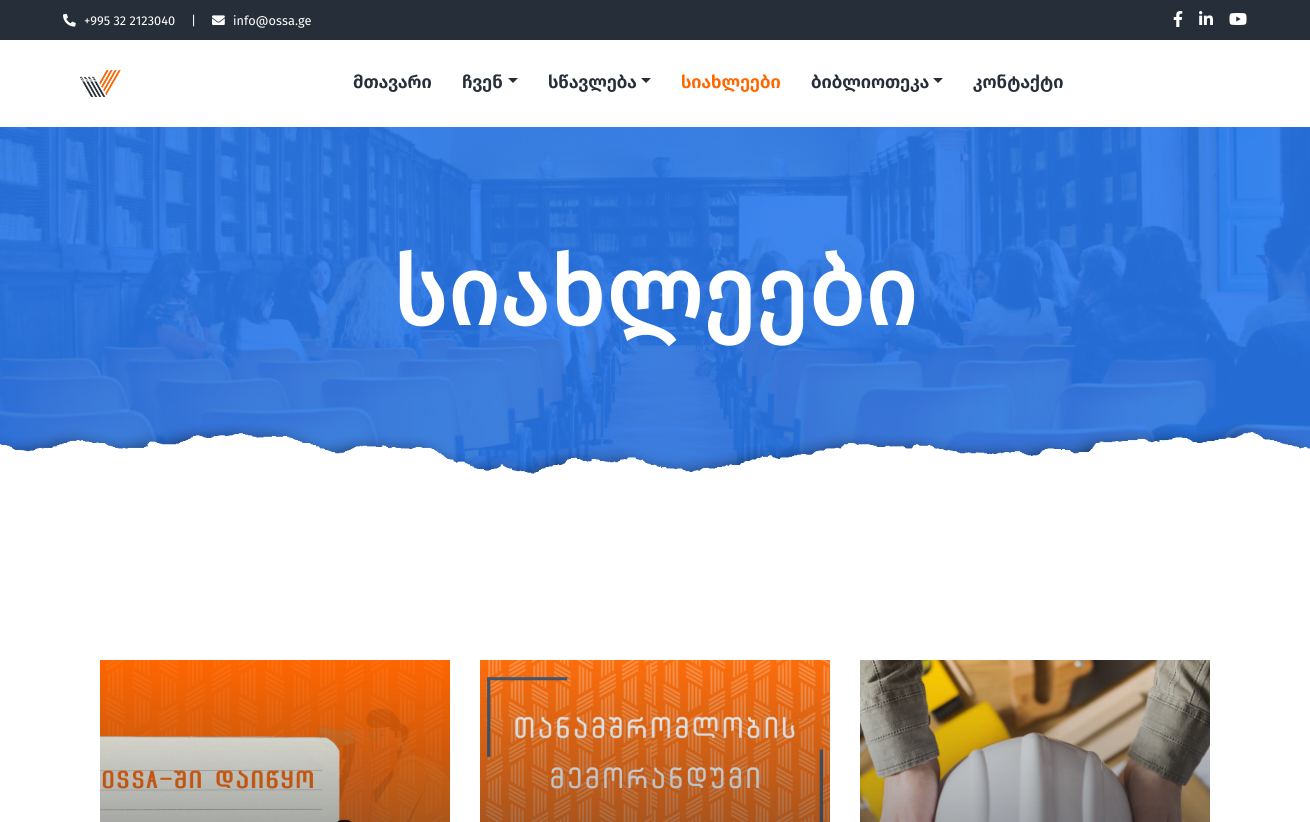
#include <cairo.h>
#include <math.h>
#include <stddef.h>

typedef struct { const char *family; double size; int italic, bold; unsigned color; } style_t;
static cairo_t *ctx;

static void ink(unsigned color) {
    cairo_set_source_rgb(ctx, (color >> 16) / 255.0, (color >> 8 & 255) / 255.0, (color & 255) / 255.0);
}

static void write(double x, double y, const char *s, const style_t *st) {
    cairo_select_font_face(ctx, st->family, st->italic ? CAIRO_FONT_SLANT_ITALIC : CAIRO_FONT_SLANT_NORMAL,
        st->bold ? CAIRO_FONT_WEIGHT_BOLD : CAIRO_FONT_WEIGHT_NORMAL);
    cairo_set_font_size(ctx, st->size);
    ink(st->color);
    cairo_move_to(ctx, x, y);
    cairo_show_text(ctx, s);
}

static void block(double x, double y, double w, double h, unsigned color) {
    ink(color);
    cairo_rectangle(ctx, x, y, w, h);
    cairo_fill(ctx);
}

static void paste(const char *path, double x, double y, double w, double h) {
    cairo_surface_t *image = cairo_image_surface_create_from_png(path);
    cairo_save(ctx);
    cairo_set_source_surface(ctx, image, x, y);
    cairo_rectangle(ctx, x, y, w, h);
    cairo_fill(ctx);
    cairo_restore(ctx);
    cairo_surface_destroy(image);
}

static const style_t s1 = {"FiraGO", 12.75, 0, 0, 0xffffff};
static const style_t s2 = {"FiraGO SemiBold", 18, 0, 0, 0x262e39};
static const style_t s3 = {"FiraGO SemiBold", 18, 0, 0, 0xff6600};
static const style_t s4 = {"FiraGO", 96, 0, 1, 0xffffff};

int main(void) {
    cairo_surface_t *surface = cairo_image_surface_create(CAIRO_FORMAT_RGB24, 1310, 822);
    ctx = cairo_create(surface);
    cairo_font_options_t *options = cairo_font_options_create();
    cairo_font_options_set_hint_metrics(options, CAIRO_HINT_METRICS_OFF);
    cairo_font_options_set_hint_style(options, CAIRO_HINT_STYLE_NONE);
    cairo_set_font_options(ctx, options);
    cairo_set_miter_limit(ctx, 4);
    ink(0xffffff);
    cairo_paint(ctx);
    block(0, 0, 1310, 40, 0x262e39);
    paste("pic1.png", 63, 13, 13, 14);
    write(84, 25, "+995 32 2123040", &s1);
    write(191, 25, "|", &s1);
    paste("pic2.png", 212, 15, 13, 10);
    write(233, 25, "info@ossa.ge", &s1);
    paste("pic3.png", 1173, 11, 10, 16);
    paste("pic4.png", 1199, 11, 14, 14);
    paste("pic5.png", 1229, 13, 18, 12);
    paste("pic6.png", 80, 70, 41, 27);
    write(353, 88, "მთავარი", &s2);
    write(462, 88, "ჩვენ", &s2);
    cairo_new_path(ctx);
    cairo_move_to(ctx, 508, 78);
    cairo_line_to(ctx, 518, 78);
    cairo_line_to(ctx, 513, 83);
    cairo_close_path(ctx);
    cairo_fill(ctx);
    write(548, 88, "სწავლება", &s2);
    cairo_new_path(ctx);
    cairo_move_to(ctx, 641, 78);
    cairo_line_to(ctx, 651, 78);
    cairo_line_to(ctx, 646, 83);
    cairo_close_path(ctx);
    cairo_fill(ctx);
    write(681, 88, "სიახლეები", &s3);
    write(811, 88, "ბიბლიოთეკა", &s2);
    cairo_new_path(ctx);
    cairo_move_to(ctx, 933, 78);
    cairo_line_to(ctx, 943, 78);
    cairo_line_to(ctx, 938, 83);
    cairo_close_path(ctx);
    cairo_fill(ctx);
    write(973, 88, "კონტაქტი", &s2);
    paste("pic7.png", 0, 127, 1310, 347);
    write(392, 325, "სიახლეები", &s4);
    paste("pic8.png", 0, 424, 1310, 50);
    paste("pic9.png", 100, 660, 350, 162);
    paste("pic10.png", 480, 660, 350, 162);
    paste("pic11.png", 860, 660, 350, 162);
    cairo_surface_write_to_png(surface, "screenshot.png");
    cairo_font_options_destroy(options);
    cairo_destroy(ctx);
    cairo_surface_destroy(surface);
    return 0;
}
